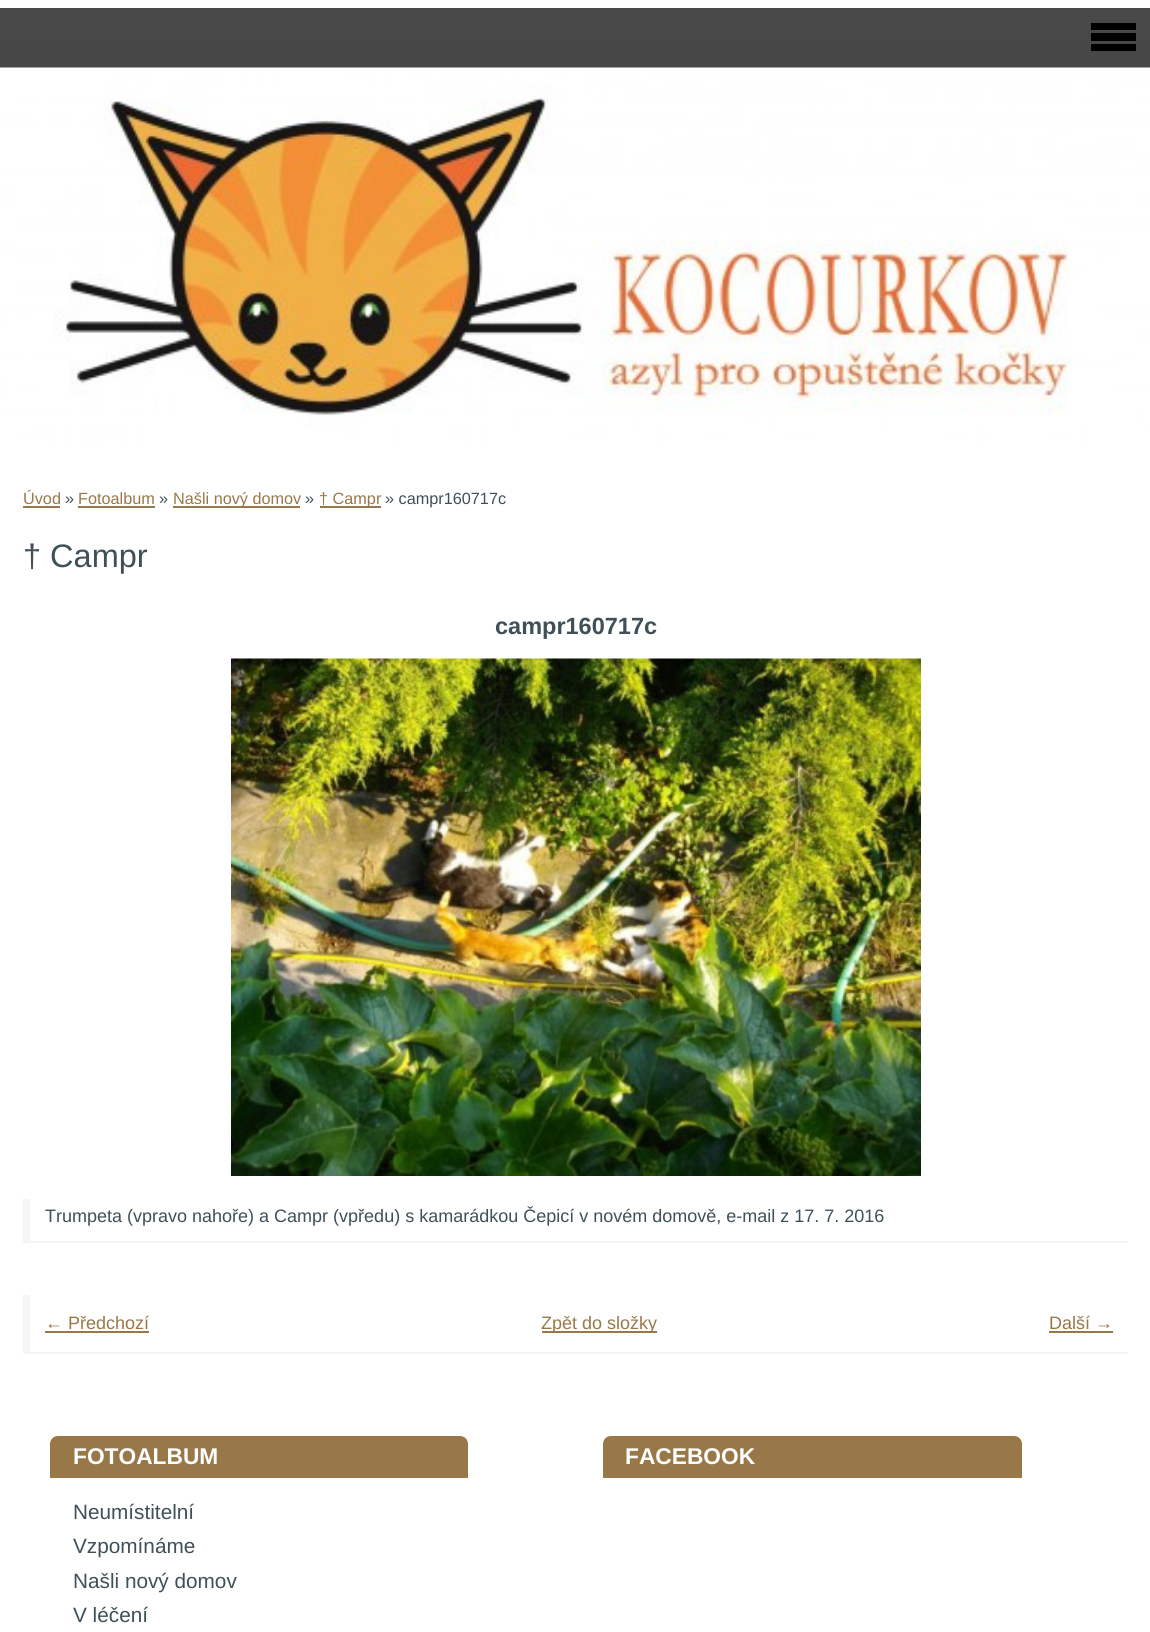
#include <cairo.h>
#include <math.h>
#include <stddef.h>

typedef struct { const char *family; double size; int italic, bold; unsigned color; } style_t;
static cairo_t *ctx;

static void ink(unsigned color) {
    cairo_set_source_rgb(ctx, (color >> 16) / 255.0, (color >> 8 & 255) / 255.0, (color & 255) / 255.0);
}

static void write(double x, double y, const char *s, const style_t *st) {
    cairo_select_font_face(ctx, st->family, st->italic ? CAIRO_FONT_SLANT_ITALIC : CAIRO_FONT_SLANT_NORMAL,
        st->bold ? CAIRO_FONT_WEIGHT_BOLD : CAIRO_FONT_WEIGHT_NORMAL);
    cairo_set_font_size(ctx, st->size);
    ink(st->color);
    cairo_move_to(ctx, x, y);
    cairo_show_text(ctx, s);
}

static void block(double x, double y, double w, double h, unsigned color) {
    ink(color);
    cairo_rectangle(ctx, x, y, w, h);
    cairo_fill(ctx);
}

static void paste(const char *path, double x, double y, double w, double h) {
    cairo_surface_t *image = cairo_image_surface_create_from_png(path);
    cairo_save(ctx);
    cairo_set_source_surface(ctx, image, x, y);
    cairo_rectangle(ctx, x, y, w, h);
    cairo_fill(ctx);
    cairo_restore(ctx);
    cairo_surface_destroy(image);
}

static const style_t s1 = {"Liberation Sans", 16.25, 0, 0, 0x987849};
static const style_t s2 = {"Liberation Sans", 16.25, 0, 0, 0x3f5057};
static const style_t s3 = {"Liberation Sans", 32.5, 0, 0, 0x3f5057};
static const style_t s4 = {"Liberation Sans", 23.5, 0, 1, 0x3f5057};
static const style_t s5 = {"Liberation Sans", 18, 0, 0, 0x3f5057};
static const style_t s6 = {"Liberation Sans", 18, 0, 0, 0x987849};
static const style_t s7 = {"Liberation Sans", 22.75, 0, 1, 0xffffff};
static const style_t s8 = {"Liberation Sans", 20.75, 0, 0, 0x3f5057};

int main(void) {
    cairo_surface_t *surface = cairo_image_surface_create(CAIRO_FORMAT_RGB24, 1150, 1632);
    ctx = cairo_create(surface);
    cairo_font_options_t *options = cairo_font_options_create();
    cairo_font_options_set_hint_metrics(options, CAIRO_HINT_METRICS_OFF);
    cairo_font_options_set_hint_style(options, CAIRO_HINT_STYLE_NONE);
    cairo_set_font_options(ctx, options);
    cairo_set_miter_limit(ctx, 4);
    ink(0xffffff);
    cairo_paint(ctx);
    paste("pic1.png", 0, 8, 1150, 60);
    block(1091, 23, 45, 7, 0x000000);
    block(1091, 33, 45, 8, 0x000000);
    block(1091, 44, 45, 7, 0x000000);
    paste("pic2.png", 0, 67, 1150, 377);
    write(23, 504, "Úvod", &s1);
    block(23, 506, 37, 2, 0x987849);
    write(65, 504, "»", &s2);
    write(78, 504, "Fotoalbum", &s1);
    block(78, 506, 77, 2, 0x987849);
    write(159, 504, "»", &s2);
    block(173, 506, 127, 2, 0x987849);
    write(173, 504, "Našli nový domov", &s1);
    write(305, 504, "»", &s2);
    block(320, 506, 61, 2, 0x987849);
    write(319, 504, "† Campr", &s1);
    write(385, 504, "» campr160717c", &s2);
    write(23, 567, "† Campr", &s3);
    write(495, 634, "campr160717c", &s4);
    paste("pic3.png", 231, 658, 690, 518);
    block(23, 1241, 1105, 2, 0xf4f6f5);
    block(23, 1199, 7, 43, 0xf4f6f5);
    write(45, 1222, "Trumpeta (vpravo nahoře) a Campr (vpředu) s kamarádkou Čepicí v novém domově, e-mail z 17. 7. 2016", &s5);
    block(23, 1352, 1105, 2, 0xf4f6f5);
    block(23, 1295, 7, 58, 0xf4f6f5);
    write(45, 1329, "← Předchozí", &s6);
    block(45, 1331, 104, 2, 0x987849);
    block(542, 1331, 115, 2, 0x987849);
    write(541, 1329, "Zpět do složky", &s6);
    write(1049, 1329, "Další →", &s6);
    block(1049, 1331, 64, 2, 0x987849);
    cairo_new_path(ctx);
    cairo_move_to(ctx, 58, 1436);
    cairo_line_to(ctx, 460, 1436);
    cairo_curve_to(ctx, 464.5, 1436, 468, 1439.5, 468, 1444);
    cairo_line_to(ctx, 468, 1478);
    cairo_line_to(ctx, 50, 1478);
    cairo_line_to(ctx, 50, 1444);
    cairo_curve_to(ctx, 50, 1439.5, 53.5, 1436, 58, 1436);
    cairo_close_path(ctx);
    cairo_fill(ctx);
    write(73, 1464, "FOTOALBUM", &s7);
    write(73, 1519, "Neumístitelní", &s8);
    write(73, 1553, "Vzpomínáme", &s8);
    write(73, 1588, "Našli nový domov", &s8);
    write(73, 1622, "V léčení", &s8);
    ink(0x987849);
    cairo_new_path(ctx);
    cairo_move_to(ctx, 611, 1436);
    cairo_line_to(ctx, 1014, 1436);
    cairo_curve_to(ctx, 1018.5, 1436, 1022, 1439.5, 1022, 1444);
    cairo_line_to(ctx, 1022, 1478);
    cairo_line_to(ctx, 603, 1478);
    cairo_line_to(ctx, 603, 1444);
    cairo_curve_to(ctx, 603, 1439.5, 606.5, 1436, 611, 1436);
    cairo_close_path(ctx);
    cairo_fill(ctx);
    write(625, 1464, "FACEBOOK", &s7);
    cairo_surface_write_to_png(surface, "screenshot.png");
    cairo_font_options_destroy(options);
    cairo_destroy(ctx);
    cairo_surface_destroy(surface);
    return 0;
}
